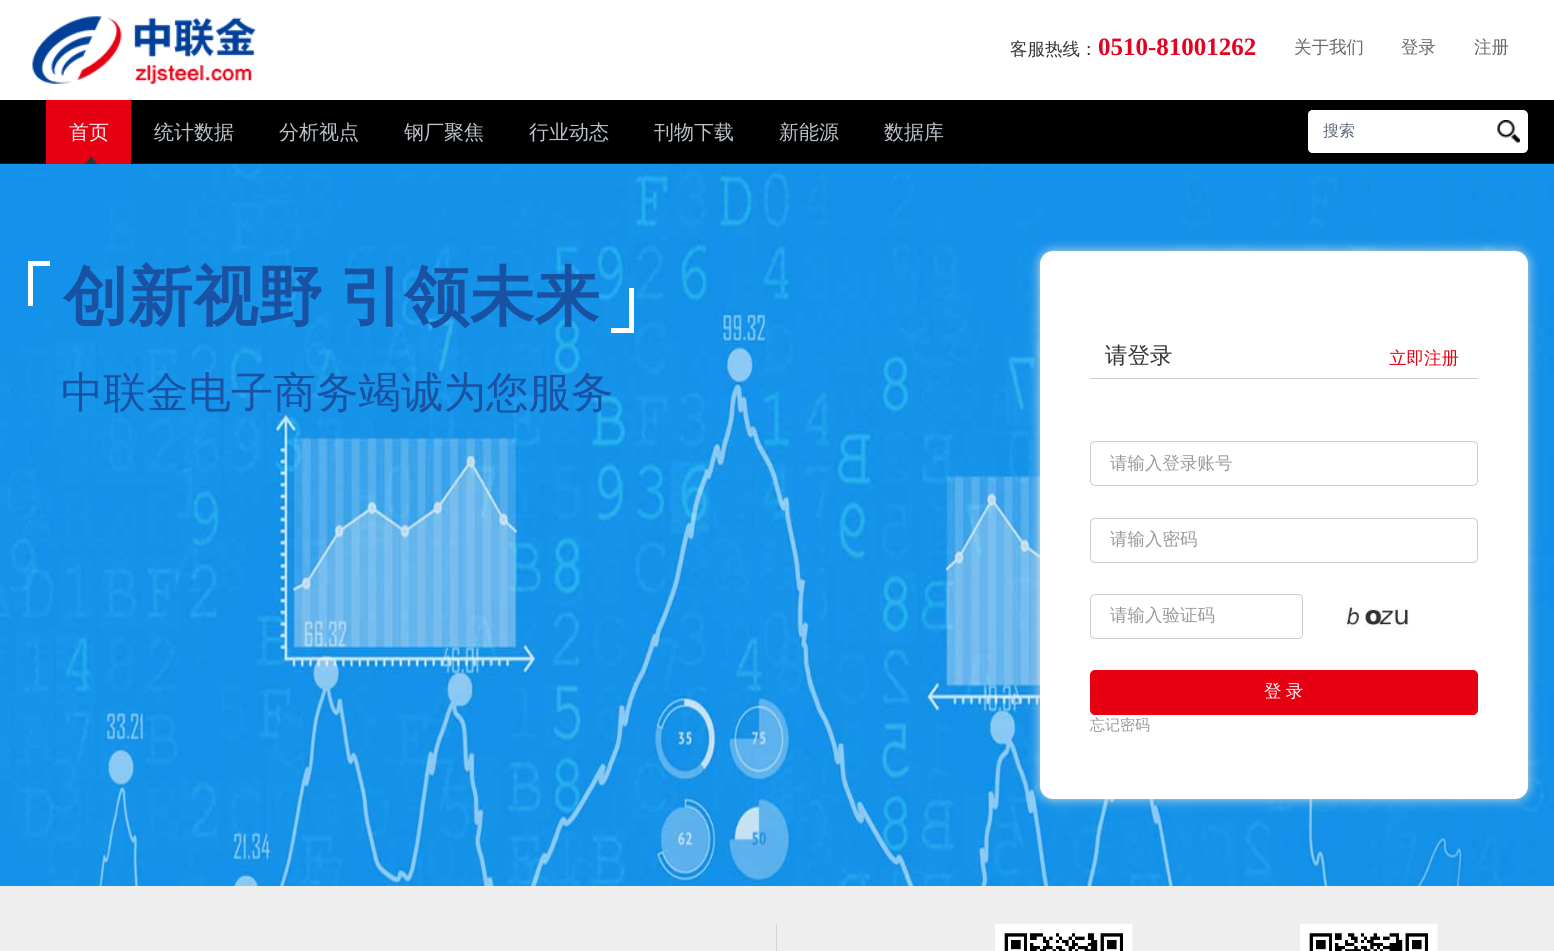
#include <cairo.h>
#include <math.h>
#include <stddef.h>

typedef struct { const char *family; double size; int italic, bold; unsigned color; } style_t;
static cairo_t *ctx;

static void ink(unsigned color) {
    cairo_set_source_rgb(ctx, (color >> 16) / 255.0, (color >> 8 & 255) / 255.0, (color & 255) / 255.0);
}

static void write(double x, double y, const char *s, const style_t *st) {
    cairo_select_font_face(ctx, st->family, st->italic ? CAIRO_FONT_SLANT_ITALIC : CAIRO_FONT_SLANT_NORMAL,
        st->bold ? CAIRO_FONT_WEIGHT_BOLD : CAIRO_FONT_WEIGHT_NORMAL);
    cairo_set_font_size(ctx, st->size);
    ink(st->color);
    cairo_move_to(ctx, x, y);
    cairo_show_text(ctx, s);
}

static void write_spaced(double x, double y, const char *s, double letter, double word) {
    cairo_move_to(ctx, x, y);
    while (*s) {
        char ch[5] = {0};
        int n = 0;
        do ch[n++] = *s++; while ((*s & 0xC0) == 0x80);
        cairo_show_text(ctx, ch);
        cairo_rel_move_to(ctx, letter + word * (*ch == ' '), 0);
    }
}

static void block(double x, double y, double w, double h, unsigned color) {
    ink(color);
    cairo_rectangle(ctx, x, y, w, h);
    cairo_fill(ctx);
}

static void round_path(double x, double y, double w, double h, double r) {
    cairo_new_sub_path(ctx);
    cairo_arc(ctx, x + w - r, y + h - r, r, 0, M_PI / 2);
    cairo_arc(ctx, x + r, y + h - r, r, M_PI / 2, M_PI);
    cairo_arc(ctx, x + r, y + r, r, M_PI, 1.5 * M_PI);
    cairo_arc(ctx, x + w - r, y + r, r, 1.5 * M_PI, 2 * M_PI);
    cairo_close_path(ctx);
}

static void blur_box(double x, double y, double w, double h, double r, double blur, double alpha) {
    cairo_push_group_with_content(ctx, CAIRO_CONTENT_ALPHA);
    cairo_set_operator(ctx, CAIRO_OPERATOR_SOURCE);
    for (int i = 15; i >= -15 && fmin(w, h) + blur * i / 3 > 0; i -= 2) {
        double e = blur * i / 6;
        cairo_set_source_rgba(ctx, 0, 0, 0, alpha * erfc((i - 1) / 8.5) / 2);
        round_path(x - e, y - e, w + 2 * e, h + 2 * e, fmax(0, fmin(r + e + blur * .6, fmin(w, h) / 2 + e)));
        cairo_fill(ctx);
    }
    cairo_pattern_t *soft = cairo_pop_group(ctx);
    cairo_mask(ctx, soft);
    cairo_pattern_destroy(soft);
}

static void paste(const char *path, double x, double y, double w, double h) {
    cairo_surface_t *image = cairo_image_surface_create_from_png(path);
    cairo_save(ctx);
    cairo_set_source_surface(ctx, image, x, y);
    cairo_rectangle(ctx, x, y, w, h);
    cairo_fill(ctx);
    cairo_restore(ctx);
    cairo_surface_destroy(image);
}

static const style_t s1 = {"WenQuanYi Zen Hei Medium", 17.5, 0, 0, 0x333333};
static const style_t s2 = {"Liberation Serif", 25, 0, 1, 0xe5001f};
static const style_t s3 = {"WenQuanYi Zen Hei Medium", 17.5, 0, 0, 0x666666};
static const style_t s4 = {"WenQuanYi Zen Hei Medium", 20, 0, 0, 0xf1f1f1};
static const style_t s5 = {"WenQuanYi Zen Hei Medium", 20, 0, 0, 0xbcc2cb};
static const style_t s6 = {"WenQuanYi Zen Hei Medium", 16, 0, 0, 0x5f6a7a};
static const style_t s7 = {"WenQuanYi Zen Hei Medium", 42.5, 0, 0, 0x1952a3};
static const style_t s8 = {"WenQuanYi Zen Hei Medium", 22.5, 0, 0, 0x333333};
static const style_t s9 = {"WenQuanYi Zen Hei Medium", 17.5, 0, 0, 0xe60012};
static const style_t s10 = {"WenQuanYi Zen Hei Medium", 17.5, 0, 0, 0x999999};
static const style_t s11 = {"WenQuanYi Zen Hei Medium", 15, 0, 0, 0x999999};

int main(void) {
    cairo_surface_t *surface = cairo_image_surface_create(CAIRO_FORMAT_RGB24, 1554, 951);
    ctx = cairo_create(surface);
    cairo_font_options_t *options = cairo_font_options_create();
    cairo_font_options_set_hint_metrics(options, CAIRO_HINT_METRICS_OFF);
    cairo_font_options_set_hint_style(options, CAIRO_HINT_STYLE_NONE);
    cairo_set_font_options(ctx, options);
    cairo_set_miter_limit(ctx, 4);
    ink(0xffffff);
    cairo_paint(ctx);
    paste("pic1.png", 32, 16, 224, 68);
    write(1010, 55, "客服热线：", &s1);
    write(1098, 55, "0510-81001262", &s2);
    write(1294, 53, "关于我们", &s3);
    write(1401, 53, "登录", &s3);
    write(1474, 53, "注册", &s3);
    block(0, 100, 1554, 64, 0x000000);
    paste("pic3.png", 0, 163, 1554, 723);
    block(46, 100, 85, 64, 0xe70012);
    write(69, 139, "首页", &s4);
    ink(0x333333);
    cairo_new_path(ctx);
    cairo_move_to(ctx, 97.5, 164);
    cairo_line_to(ctx, 85, 164);
    cairo_line_to(ctx, 91, 156);
    cairo_close_path(ctx);
    cairo_fill(ctx);
    ink(0xe70012);
    cairo_new_path(ctx);
    cairo_move_to(ctx, 85, 164);
    cairo_line_to(ctx, 85, 156);
    cairo_line_to(ctx, 91, 156);
    cairo_close_path(ctx);
    cairo_fill(ctx);
    write(154, 139, "统计数据", &s5);
    write(279, 139, "分析视点", &s5);
    write(404, 139, "钢厂聚焦", &s5);
    write(529, 139, "行业动态", &s5);
    write(654, 139, "刊物下载", &s5);
    write(779, 139, "新能源", &s5);
    write(884, 139, "数据库", &s5);
    ink(0xffffff);
    round_path(1308, 110, 220, 43, 5);
    cairo_fill(ctx);
    round_path(1308, 110, 182, 43, 5);
    cairo_fill(ctx);
    write(1323, 136, "搜索", &s6);
    paste("pic2.png", 1497, 120, 23, 23);
    block(28, 261, 22, 5, 0xffffff);
    block(28, 261, 5, 45, 0xffffff);
    cairo_select_font_face(ctx, "WenQuanYi Zen Hei", CAIRO_FONT_SLANT_NORMAL, CAIRO_FONT_WEIGHT_BOLD);
    cairo_set_font_size(ctx, 65);
    ink(0x1952a3);
    write_spaced(63, 319, "创新视野 引领未来", 0, -3);
    block(629, 288, 5, 45, 0xffffff);
    block(611, 328, 23, 5, 0xffffff);
    write(61, 407, "中联金电子商务竭诚为您服务", &s7);
    ink(0xdddddd);
    blur_box(1040, 251, 488, 548, 13, 5.5, 1);
    ink(0xffffff);
    round_path(1040, 251, 488, 548, 13);
    cairo_fill(ctx);
    block(1090, 378, 388, 1, 0xcccccc);
    write(1105, 363, "请登录", &s8);
    write(1389, 364, "立即注册", &s9);
    round_path(1090.5, 441.5, 387, 44, 4.5);
    ink(0xcccccc);
    cairo_set_line_width(ctx, 1);
    cairo_stroke(ctx);
    write(1110, 469, "请输入登录账号", &s10);
    round_path(1090.5, 518.5, 387, 44, 4.5);
    ink(0xcccccc);
    cairo_stroke(ctx);
    write(1110, 545, "请输入密码", &s10);
    round_path(1090.5, 594.5, 212, 44, 4.5);
    ink(0xcccccc);
    cairo_stroke(ctx);
    write(1110, 621, "请输入验证码", &s10);
    paste("pic4.png", 1346, 604, 64, 24);
    ink(0xe60012);
    round_path(1090.5, 670.5, 387, 44, 4.5);
    cairo_fill_preserve(ctx);
    cairo_stroke(ctx);
    ink(0xffffff);
    write_spaced(1264, 697, "登 录", 0, -1);
    write(1090, 730, "忘记密码", &s11);
    block(0, 886, 1554, 65, 0xeeeeee);
    block(776, 924, 1, 27, 0xd3d3d3);
    paste("pic5.png", 995, 923, 138, 28);
    paste("pic6.png", 1300, 923, 138, 28);
    cairo_surface_write_to_png(surface, "screenshot.png");
    cairo_font_options_destroy(options);
    cairo_destroy(ctx);
    cairo_surface_destroy(surface);
    return 0;
}
